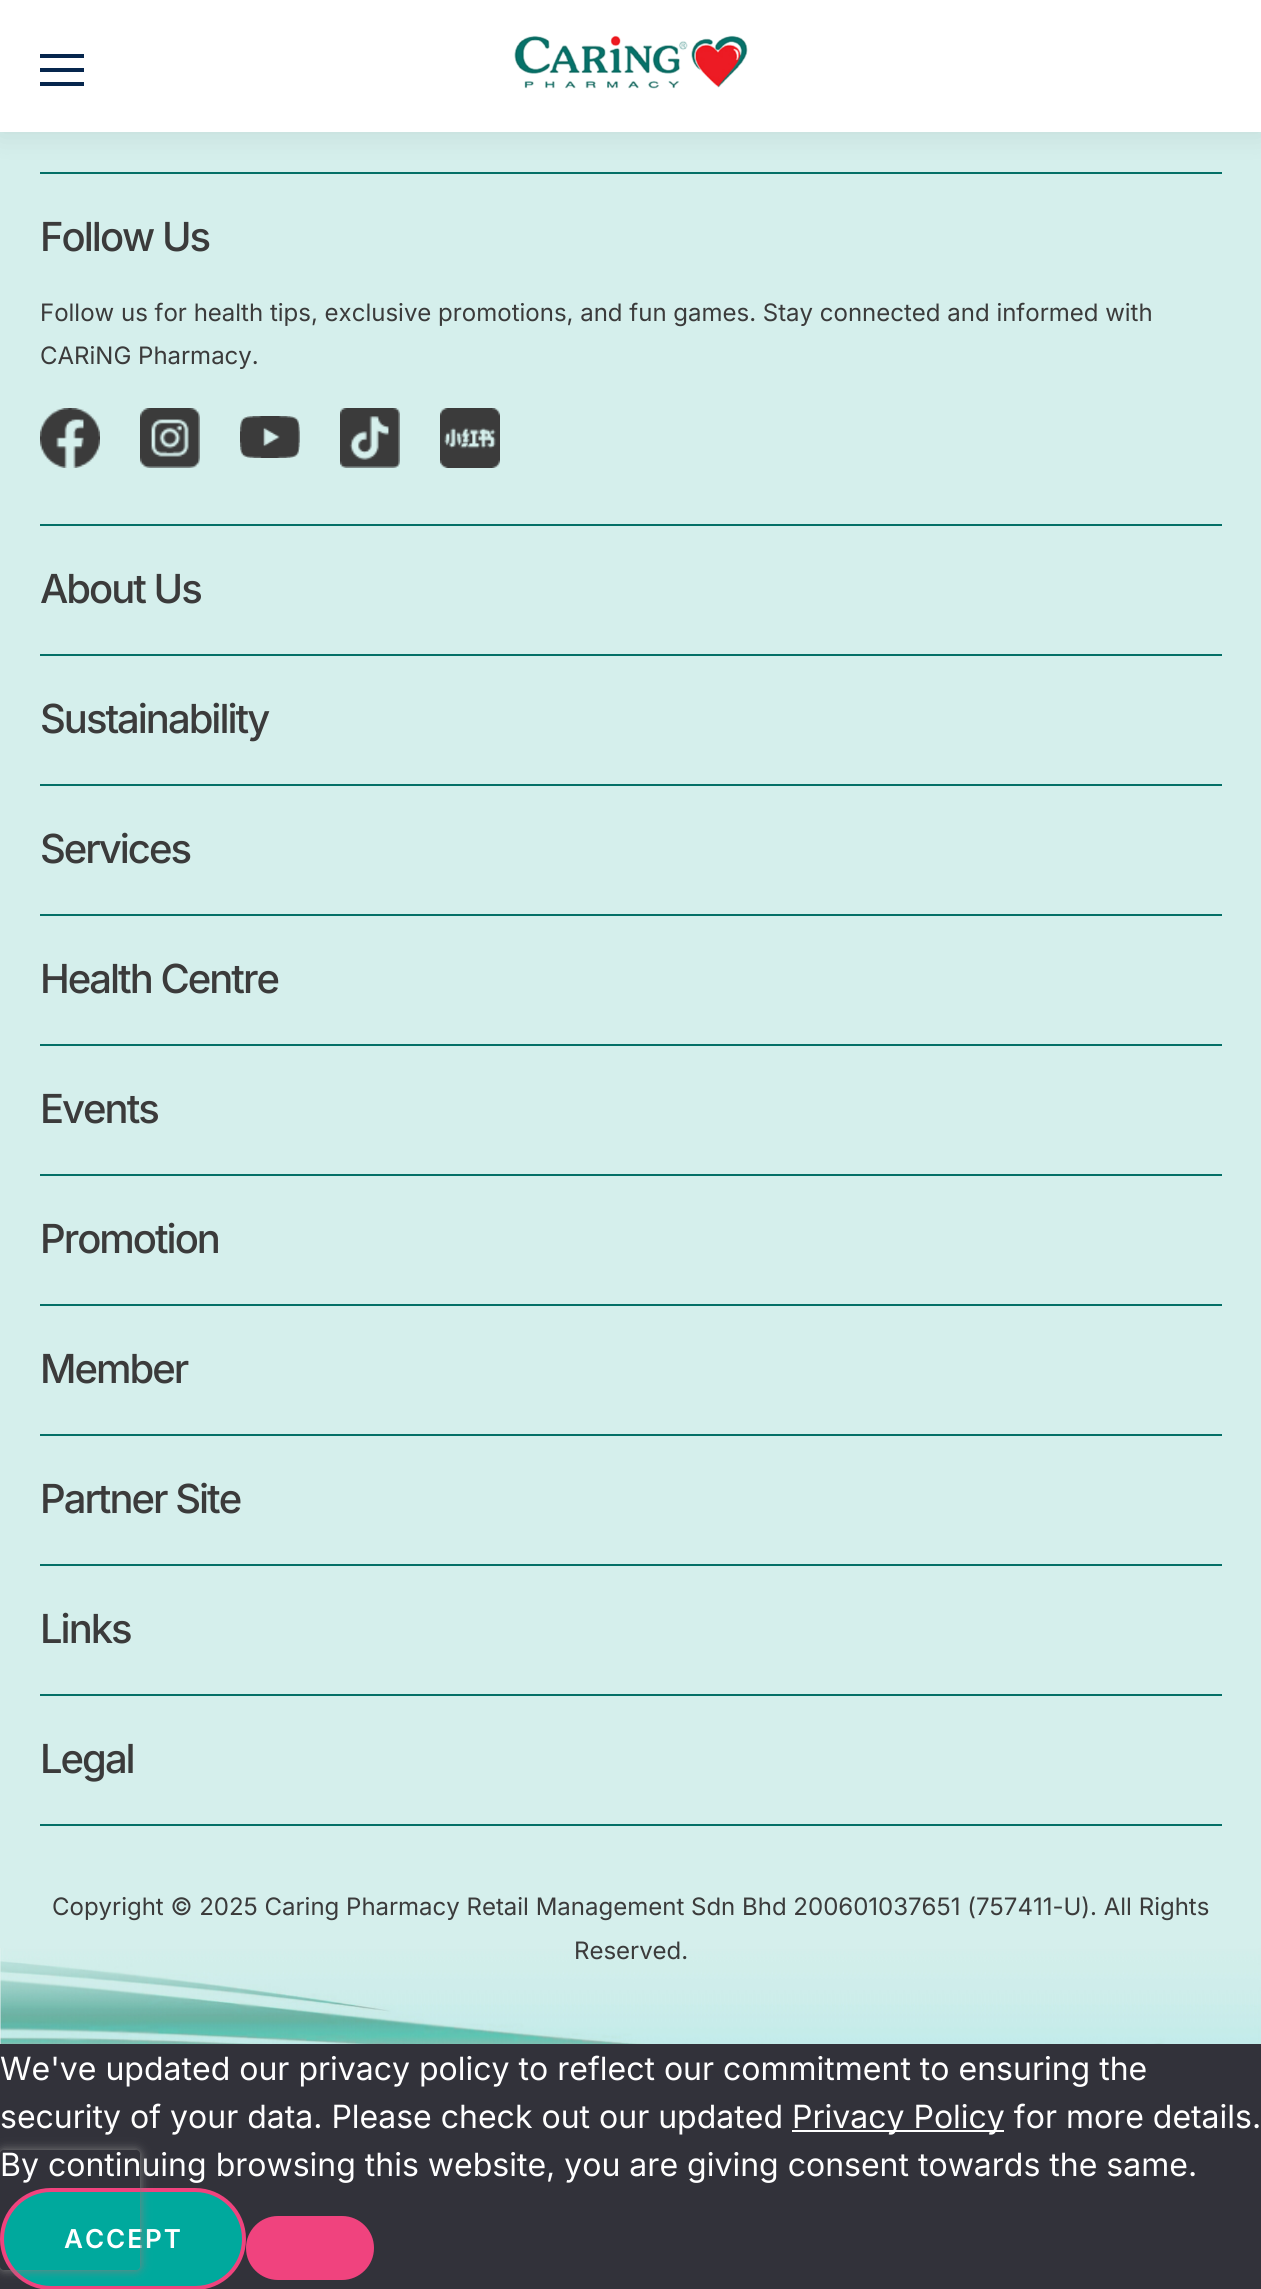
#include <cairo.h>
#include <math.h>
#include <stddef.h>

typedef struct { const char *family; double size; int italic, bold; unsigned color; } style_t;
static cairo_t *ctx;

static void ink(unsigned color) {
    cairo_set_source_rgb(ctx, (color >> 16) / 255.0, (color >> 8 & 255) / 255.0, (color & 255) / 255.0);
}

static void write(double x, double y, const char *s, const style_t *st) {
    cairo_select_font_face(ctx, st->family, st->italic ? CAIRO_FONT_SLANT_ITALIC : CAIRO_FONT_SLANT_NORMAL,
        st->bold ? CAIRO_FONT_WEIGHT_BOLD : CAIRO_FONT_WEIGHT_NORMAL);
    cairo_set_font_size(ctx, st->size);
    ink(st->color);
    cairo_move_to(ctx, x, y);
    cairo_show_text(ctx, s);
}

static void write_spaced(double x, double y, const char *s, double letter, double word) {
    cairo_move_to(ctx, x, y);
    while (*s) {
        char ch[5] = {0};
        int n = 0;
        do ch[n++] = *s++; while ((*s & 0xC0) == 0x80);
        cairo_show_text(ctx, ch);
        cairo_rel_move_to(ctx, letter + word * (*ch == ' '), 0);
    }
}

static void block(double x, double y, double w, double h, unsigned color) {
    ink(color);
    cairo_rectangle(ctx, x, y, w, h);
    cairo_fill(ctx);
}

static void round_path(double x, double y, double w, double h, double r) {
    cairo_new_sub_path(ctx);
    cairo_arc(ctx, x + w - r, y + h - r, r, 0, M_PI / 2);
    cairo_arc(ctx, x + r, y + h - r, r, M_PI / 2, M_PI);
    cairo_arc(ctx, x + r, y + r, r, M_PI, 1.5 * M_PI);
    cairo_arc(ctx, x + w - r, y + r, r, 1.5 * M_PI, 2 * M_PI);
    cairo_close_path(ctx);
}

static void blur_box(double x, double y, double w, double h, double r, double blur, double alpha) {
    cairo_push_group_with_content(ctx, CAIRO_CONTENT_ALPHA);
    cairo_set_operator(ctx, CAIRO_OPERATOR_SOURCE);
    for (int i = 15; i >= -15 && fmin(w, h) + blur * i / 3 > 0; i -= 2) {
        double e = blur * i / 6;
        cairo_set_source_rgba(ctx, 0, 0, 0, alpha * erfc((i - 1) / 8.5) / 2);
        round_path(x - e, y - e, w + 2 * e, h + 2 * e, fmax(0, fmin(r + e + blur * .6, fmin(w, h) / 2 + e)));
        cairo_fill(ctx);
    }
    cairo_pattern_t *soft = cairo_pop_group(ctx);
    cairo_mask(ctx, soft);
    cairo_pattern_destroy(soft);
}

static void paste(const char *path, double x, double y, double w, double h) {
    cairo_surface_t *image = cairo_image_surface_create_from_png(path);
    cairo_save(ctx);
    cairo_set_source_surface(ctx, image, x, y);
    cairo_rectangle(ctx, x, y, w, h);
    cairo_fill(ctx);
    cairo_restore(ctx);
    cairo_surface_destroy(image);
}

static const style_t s1 = {"Inter", 24, 0, 0, 0x3b3b3b};
static const style_t s2 = {"Inter", 32, 0, 0, 0xffffff};

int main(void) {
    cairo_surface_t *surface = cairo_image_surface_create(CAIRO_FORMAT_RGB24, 1261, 2289);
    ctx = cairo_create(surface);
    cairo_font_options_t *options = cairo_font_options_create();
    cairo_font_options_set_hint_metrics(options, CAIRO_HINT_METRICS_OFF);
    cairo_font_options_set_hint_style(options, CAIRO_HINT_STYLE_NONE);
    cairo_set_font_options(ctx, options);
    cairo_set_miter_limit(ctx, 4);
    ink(0x32323a);
    cairo_paint(ctx);
    block(0, 132, 1261, 1816, 0xd5efec);
    block(40, 172, 1182, 2, 0x047067);
    ink(0x000000);
    blur_box(0, 0, 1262, 132, 0, 15, 0.1);
    block(0, 0, 1261, 132, 0xffffff);
    block(40, 68, 44, 4, 0x06264d);
    block(40, 54, 44, 4, 0x06264d);
    block(40, 82, 44, 4, 0x06264d);
    paste("pic1.png", 514, 35, 234, 54);
    paste("pic2.png", 0, 1948, 1261, 96);
    cairo_select_font_face(ctx, "Inter Medium", CAIRO_FONT_SLANT_NORMAL, CAIRO_FONT_WEIGHT_NORMAL);
    cairo_set_font_size(ctx, 40);
    ink(0x3b3b3b);
    write_spaced(40, 251, "Follow Us", -2, 0);
    write(40, 321, "Follow us for health tips, exclusive promotions, and fun games. Stay connected and informed with", &s1);
    write(40, 364, "CARiNG Pharmacy.", &s1);
    paste("pic3.png", 40, 408, 60, 60);
    paste("pic4.png", 140, 408, 60, 60);
    paste("pic5.png", 240, 416, 60, 42);
    paste("pic6.png", 340, 408, 60, 60);
    paste("pic7.png", 440, 408, 60, 60);
    block(40, 524, 1182, 2, 0x047067);
    block(40, 654, 1182, 2, 0x047067);
    cairo_select_font_face(ctx, "Inter Medium", CAIRO_FONT_SLANT_NORMAL, CAIRO_FONT_WEIGHT_NORMAL);
    cairo_set_font_size(ctx, 40);
    ink(0x3b3b3b);
    write_spaced(40, 603, "About Us", -2, 0);
    block(40, 784, 1182, 2, 0x047067);
    ink(0x3b3b3b);
    write_spaced(40, 733, "Sustainability", -2, 0);
    block(40, 914, 1182, 2, 0x047067);
    ink(0x3b3b3b);
    write_spaced(40, 863, "Services", -2, 0);
    block(40, 1044, 1182, 2, 0x047067);
    ink(0x3b3b3b);
    write_spaced(40, 993, "Health Centre", -2, 0);
    block(40, 1174, 1182, 2, 0x047067);
    ink(0x3b3b3b);
    write_spaced(40, 1123, "Events", -2, 0);
    block(40, 1304, 1182, 2, 0x047067);
    ink(0x3b3b3b);
    write_spaced(40, 1253, "Promotion", -2, 0);
    block(40, 1434, 1182, 2, 0x047067);
    ink(0x3b3b3b);
    write_spaced(40, 1383, "Member", -2, 0);
    block(40, 1564, 1182, 2, 0x047067);
    ink(0x3b3b3b);
    write_spaced(40, 1513, "Partner Site", -2, 0);
    block(40, 1694, 1182, 2, 0x047067);
    ink(0x3b3b3b);
    write_spaced(40, 1643, "Links", -2, 0);
    block(40, 1824, 1182, 2, 0x047067);
    ink(0x3b3b3b);
    write_spaced(40, 1773, "Legal", -2, 0);
    write(52, 1915, "Copyright © 2025 Caring Pharmacy Retail Management Sdn Bhd 200601037651 (757411-U). All Rights", &s1);
    write(574, 1959, "Reserved.", &s1);
    write(0, 2080, "We've updated our privacy policy to reflect our commitment to ensuring the", &s2);
    write(0, 2128, "security of your data. Please check out our updated", &s2);
    block(792, 2130, 212, 2, 0xffffff);
    write(792, 2128, "Privacy Policy for more details.", &s2);
    write(0, 2176, "By continuing browsing this website, you are giving consent towards the same.", &s2);
    ink(0x00a99d);
    round_path(2, 2190, 242, 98, 49);
    cairo_fill_preserve(ctx);
    ink(0xf0437e);
    cairo_set_line_width(ctx, 4);
    cairo_stroke(ctx);
    cairo_select_font_face(ctx, "Inter SemiBold", CAIRO_FONT_SLANT_NORMAL, CAIRO_FONT_WEIGHT_NORMAL);
    cairo_set_font_size(ctx, 26);
    ink(0xffffff);
    write_spaced(64, 2248, "ACCEPT", 2, 0);
    ink(0xf0437e);
    round_path(248, 2218, 124, 60, 30);
    cairo_fill_preserve(ctx);
    cairo_stroke(ctx);
    cairo_save(ctx);
    cairo_set_fill_rule(ctx, CAIRO_FILL_RULE_EVEN_ODD);
    cairo_new_path(ctx);
    cairo_move_to(ctx, 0, 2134);
    cairo_line_to(ctx, 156, 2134);
    cairo_line_to(ctx, 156, 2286);
    cairo_line_to(ctx, 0, 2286);
    cairo_close_path(ctx);
    cairo_move_to(ctx, 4, 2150);
    cairo_line_to(ctx, 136, 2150);
    cairo_curve_to(ctx, 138, 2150, 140, 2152, 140, 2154);
    cairo_line_to(ctx, 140, 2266);
    cairo_curve_to(ctx, 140, 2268, 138, 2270, 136, 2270);
    cairo_line_to(ctx, 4, 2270);
    cairo_curve_to(ctx, 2, 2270, 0, 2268, 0, 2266);
    cairo_line_to(ctx, 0, 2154);
    cairo_curve_to(ctx, 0, 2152, 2, 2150, 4, 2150);
    cairo_close_path(ctx);
    cairo_clip(ctx);
    ink(0x808080);
    blur_box(0, 2150, 140, 120, 4, 5, 1);
    cairo_restore(ctx);
    cairo_surface_write_to_png(surface, "screenshot.png");
    cairo_font_options_destroy(options);
    cairo_destroy(ctx);
    cairo_surface_destroy(surface);
    return 0;
}
